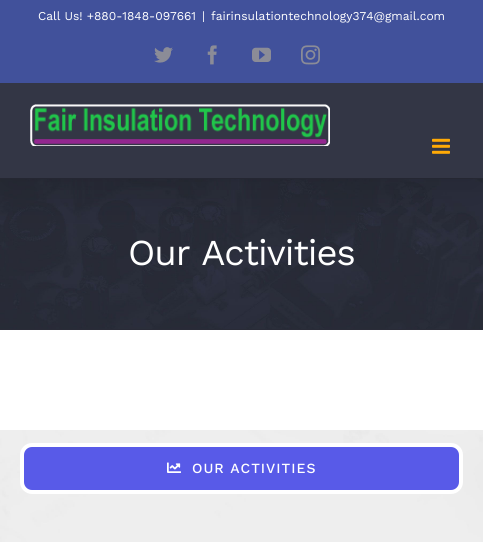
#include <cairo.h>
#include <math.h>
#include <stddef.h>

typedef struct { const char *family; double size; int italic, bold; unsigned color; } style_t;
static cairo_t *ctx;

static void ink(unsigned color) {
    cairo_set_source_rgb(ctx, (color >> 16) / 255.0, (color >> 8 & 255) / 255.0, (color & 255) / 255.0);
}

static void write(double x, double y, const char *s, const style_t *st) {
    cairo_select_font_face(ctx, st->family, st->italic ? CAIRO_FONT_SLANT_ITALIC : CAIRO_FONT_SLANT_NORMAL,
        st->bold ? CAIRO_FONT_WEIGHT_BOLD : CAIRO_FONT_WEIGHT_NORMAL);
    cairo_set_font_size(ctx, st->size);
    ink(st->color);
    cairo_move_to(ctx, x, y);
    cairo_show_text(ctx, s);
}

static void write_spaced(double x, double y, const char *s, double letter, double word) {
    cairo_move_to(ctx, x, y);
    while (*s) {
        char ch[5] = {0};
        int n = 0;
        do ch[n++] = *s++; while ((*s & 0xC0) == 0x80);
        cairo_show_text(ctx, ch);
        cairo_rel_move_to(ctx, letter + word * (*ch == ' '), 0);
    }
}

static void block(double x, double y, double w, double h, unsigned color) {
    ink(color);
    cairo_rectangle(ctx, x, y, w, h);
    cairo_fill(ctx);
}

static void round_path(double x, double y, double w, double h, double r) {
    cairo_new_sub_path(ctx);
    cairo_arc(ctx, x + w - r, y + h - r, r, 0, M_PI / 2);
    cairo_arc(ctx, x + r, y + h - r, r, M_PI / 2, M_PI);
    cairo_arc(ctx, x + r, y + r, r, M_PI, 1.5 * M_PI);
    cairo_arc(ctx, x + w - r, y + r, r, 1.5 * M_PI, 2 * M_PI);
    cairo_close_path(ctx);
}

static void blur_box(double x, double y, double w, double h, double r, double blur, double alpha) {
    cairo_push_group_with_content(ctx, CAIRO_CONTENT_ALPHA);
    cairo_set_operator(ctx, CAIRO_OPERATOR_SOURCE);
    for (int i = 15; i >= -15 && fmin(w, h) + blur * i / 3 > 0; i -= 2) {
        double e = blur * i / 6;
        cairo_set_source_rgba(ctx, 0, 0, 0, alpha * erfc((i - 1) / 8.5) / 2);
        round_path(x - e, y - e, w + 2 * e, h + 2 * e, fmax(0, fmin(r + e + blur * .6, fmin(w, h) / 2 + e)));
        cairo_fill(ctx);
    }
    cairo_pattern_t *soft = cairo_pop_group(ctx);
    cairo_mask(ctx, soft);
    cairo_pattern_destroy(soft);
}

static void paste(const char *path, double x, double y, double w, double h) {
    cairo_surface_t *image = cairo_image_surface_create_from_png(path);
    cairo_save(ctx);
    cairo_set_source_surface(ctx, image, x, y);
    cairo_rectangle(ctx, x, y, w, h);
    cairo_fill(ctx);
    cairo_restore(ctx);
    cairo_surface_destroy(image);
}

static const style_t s1 = {"Work Sans", 12, 0, 0, 0xffffff};

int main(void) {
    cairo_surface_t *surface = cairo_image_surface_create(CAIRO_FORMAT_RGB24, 483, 542);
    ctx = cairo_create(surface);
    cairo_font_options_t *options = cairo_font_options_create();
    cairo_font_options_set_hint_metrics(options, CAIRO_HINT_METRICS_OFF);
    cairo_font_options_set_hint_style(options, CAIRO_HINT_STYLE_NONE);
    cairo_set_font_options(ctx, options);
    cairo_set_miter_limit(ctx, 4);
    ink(0xffffff);
    cairo_paint(ctx);
    paste("pic7.png", 0, 179, 483, 150);
    block(0, 178, 483, 1, 0x292b37);
    ink(0x000000);
    blur_box(2, 12, 479, 174, 0, 25, 0.14);
    block(0, 0, 483, 83, 0x41519b);
    write(38, 20, "Call Us! +880-1848-097661", &s1);
    write(202, 20, "|", &s1);
    write(211, 20, "fairinsulationtechnology374@gmail.com", &s1);
    paste("pic1.png", 154, 47, 19, 16);
    paste("pic2.png", 207, 45, 10, 20);
    paste("pic3.png", 252, 47, 19, 15);
    paste("pic4.png", 301, 45, 19, 20);
    block(0, 83, 483, 95, 0x333645);
    paste("pic5.png", 30, 104, 300, 42);
    paste("pic6.png", 432, 138, 18, 16);
    block(0, 329, 483, 1, 0x292b37);
    cairo_set_font_size(ctx, 36.5);
    ink(0xffffff);
    write_spaced(128, 265, "Our Activities", -1, 0);
    paste("pic8.png", 0, 430, 483, 112);
    ink(0x585ae8);
    round_path(22, 445, 439, 47, 10);
    cairo_fill_preserve(ctx);
    ink(0xffffff);
    cairo_set_line_width(ctx, 4);
    cairo_stroke(ctx);
    paste("pic9.png", 167, 462, 14, 11);
    cairo_select_font_face(ctx, "Work Sans Medium", CAIRO_FONT_SLANT_NORMAL, CAIRO_FONT_WEIGHT_NORMAL);
    cairo_set_font_size(ctx, 14);
    write_spaced(192, 473, "OUR ACTIVITIES", 1, 0);
    cairo_surface_write_to_png(surface, "screenshot.png");
    cairo_font_options_destroy(options);
    cairo_destroy(ctx);
    cairo_surface_destroy(surface);
    return 0;
}
